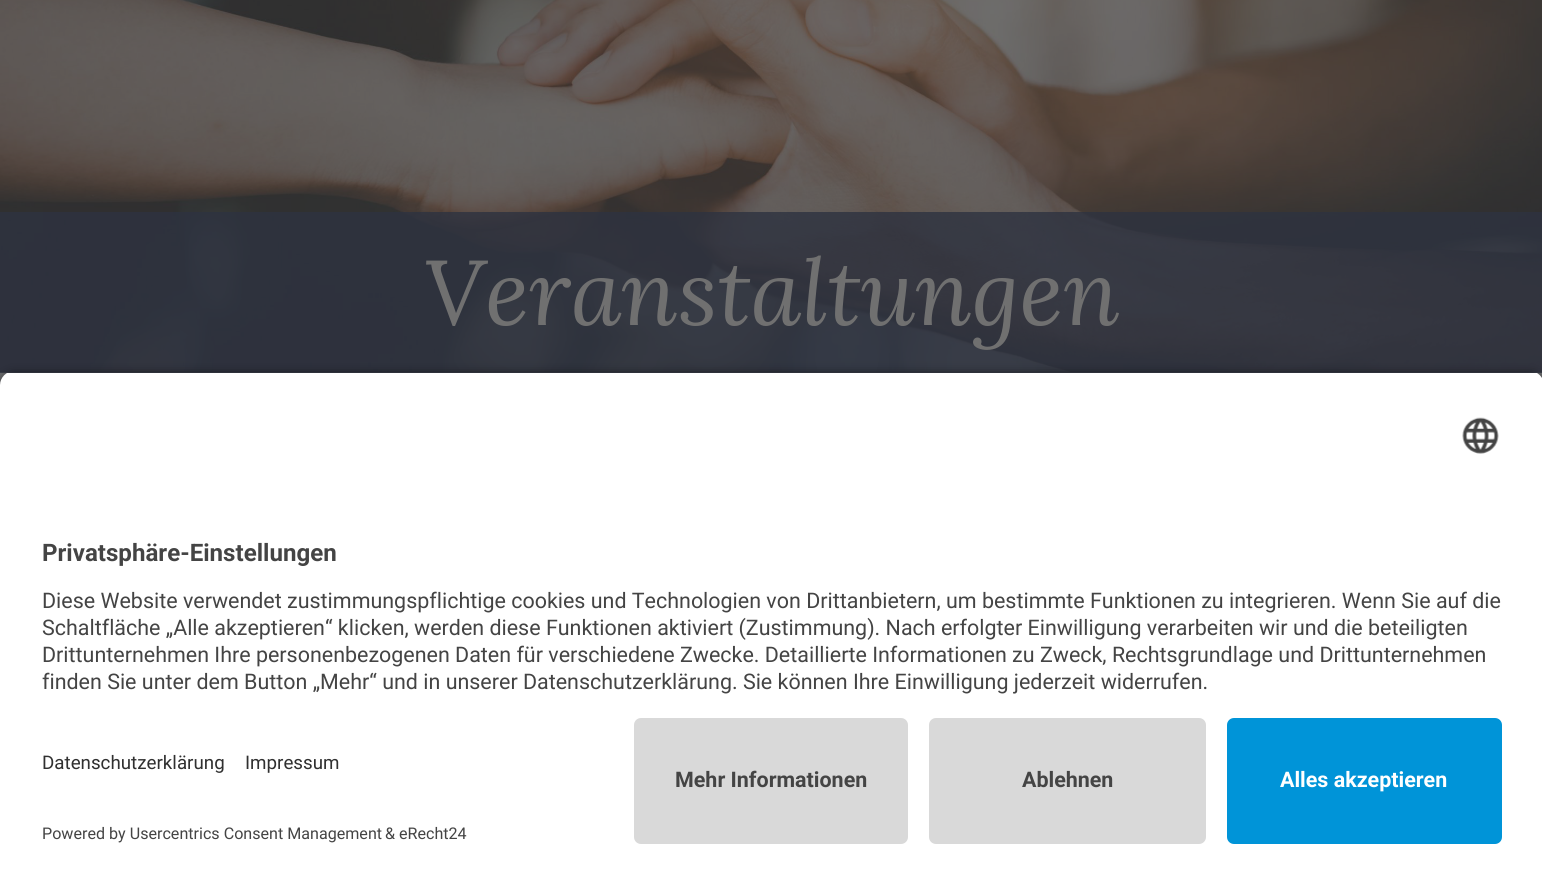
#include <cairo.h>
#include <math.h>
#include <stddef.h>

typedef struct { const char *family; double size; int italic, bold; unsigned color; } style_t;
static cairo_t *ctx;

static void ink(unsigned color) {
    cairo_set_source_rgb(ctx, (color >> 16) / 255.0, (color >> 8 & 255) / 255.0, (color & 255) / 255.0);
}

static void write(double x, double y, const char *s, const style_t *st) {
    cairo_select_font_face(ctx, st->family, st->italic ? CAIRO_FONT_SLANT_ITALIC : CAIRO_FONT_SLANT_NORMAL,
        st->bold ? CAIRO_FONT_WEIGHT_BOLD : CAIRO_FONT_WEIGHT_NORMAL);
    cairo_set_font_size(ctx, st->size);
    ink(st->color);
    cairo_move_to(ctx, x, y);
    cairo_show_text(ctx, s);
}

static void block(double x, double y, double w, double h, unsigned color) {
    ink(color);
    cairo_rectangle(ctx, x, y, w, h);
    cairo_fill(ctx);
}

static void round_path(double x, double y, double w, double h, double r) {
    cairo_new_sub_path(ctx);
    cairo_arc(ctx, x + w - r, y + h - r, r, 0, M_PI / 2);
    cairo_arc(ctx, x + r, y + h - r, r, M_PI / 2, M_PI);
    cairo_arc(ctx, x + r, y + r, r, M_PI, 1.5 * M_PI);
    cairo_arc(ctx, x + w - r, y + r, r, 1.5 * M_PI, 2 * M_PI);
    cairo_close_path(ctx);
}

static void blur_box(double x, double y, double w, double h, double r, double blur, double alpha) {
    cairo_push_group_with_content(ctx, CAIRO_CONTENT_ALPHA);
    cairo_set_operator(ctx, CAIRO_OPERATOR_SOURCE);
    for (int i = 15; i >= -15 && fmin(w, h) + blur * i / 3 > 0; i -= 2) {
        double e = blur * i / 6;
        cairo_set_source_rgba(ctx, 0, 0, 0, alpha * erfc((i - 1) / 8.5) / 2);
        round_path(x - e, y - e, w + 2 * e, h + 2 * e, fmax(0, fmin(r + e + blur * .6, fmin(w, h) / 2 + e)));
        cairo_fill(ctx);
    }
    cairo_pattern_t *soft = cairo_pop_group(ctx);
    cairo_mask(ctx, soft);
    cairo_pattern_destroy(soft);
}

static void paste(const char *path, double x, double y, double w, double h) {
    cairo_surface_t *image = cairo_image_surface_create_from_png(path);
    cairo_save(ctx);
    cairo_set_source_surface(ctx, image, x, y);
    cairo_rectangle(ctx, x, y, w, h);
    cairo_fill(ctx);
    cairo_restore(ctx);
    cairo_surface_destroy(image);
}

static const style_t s1 = {"Lora", 92, 1, 0, 0x707070};
static const style_t s2 = {"Roboto", 24.1, 0, 1, 0x444444};
static const style_t s3 = {"Roboto", 21.45, 0, 0, 0x444444};
static const style_t s4 = {"Roboto", 18.75, 0, 0, 0x303030};
static const style_t s5 = {"Roboto", 16.1, 0, 0, 0x444444};
static const style_t s6 = {"Roboto", 21.45, 0, 1, 0x444444};
static const style_t s7 = {"Roboto", 21.45, 0, 1, 0xffffff};

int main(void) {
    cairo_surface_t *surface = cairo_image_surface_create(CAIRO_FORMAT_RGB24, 1542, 885);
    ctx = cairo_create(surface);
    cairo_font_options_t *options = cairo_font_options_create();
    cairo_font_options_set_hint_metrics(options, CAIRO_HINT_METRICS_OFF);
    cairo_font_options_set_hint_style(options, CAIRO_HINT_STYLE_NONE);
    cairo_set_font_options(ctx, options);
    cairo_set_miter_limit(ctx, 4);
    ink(0x6b6c6e);
    cairo_paint(ctx);
    paste("pic1.png", 0, 0, 1542, 373);
    cairo_set_source_rgba(ctx, 0.176, 0.2, 0.251, 0.8);
    cairo_rectangle(ctx, 0, 212, 1542, 161);
    cairo_fill(ctx);
    write(424, 325, "Veranstaltungen", &s1);
    ink(0x000000);
    blur_box(0, 376, 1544, 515, 14, 6, 0.8);
    cairo_save(ctx);
    cairo_new_path(ctx);
    cairo_move_to(ctx, 14, 371);
    cairo_line_to(ctx, 1530, 371);
    cairo_curve_to(ctx, 1537.5, 371, 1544, 377.5, 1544, 385);
    cairo_line_to(ctx, 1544, 704);
    cairo_line_to(ctx, 0, 704);
    cairo_line_to(ctx, 0, 385);
    cairo_curve_to(ctx, 0, 377.5, 6.5, 371, 14, 371);
    cairo_close_path(ctx);
    cairo_clip(ctx);
    block(0, 373, 1542, 331, 0xffffff);
    cairo_restore(ctx);
    paste("pic2.png", 1462, 417, 37, 37);
    write(42, 561, "Privatsphäre-Einstellungen", &s2);
    write(42, 608, "Diese Website verwendet zustimmungspflichtige cookies und Technologien von Drittanbietern, um bestimmte Funktionen zu integrieren. Wenn Sie auf die", &s3);
    write(42, 635, "Schaltfläche „Alle akzeptieren“ klicken, werden diese Funktionen aktiviert (Zustimmung). Nach erfolgter Einwilligung verarbeiten wir und die beteiligten", &s3);
    write(42, 662, "Drittunternehmen Ihre personenbezogenen Daten für verschiedene Zwecke. Detaillierte Informationen zu Zweck, Rechtsgrundlage und Drittunternehmen", &s3);
    write(42, 689, "finden Sie unter dem Button „Mehr“ und in unserer Datenschutzerklärung. Sie können Ihre Einwilligung jederzeit widerrufen.", &s3);
    block(0, 704, 1542, 181, 0xffffff);
    write(42, 769, "Datenschutzerklärung", &s4);
    write(245, 769, "Impressum", &s4);
    write(42, 839, "Powered by Usercentrics Consent Management", &s5);
    write(385, 839, "& eRecht24", &s5);
    ink(0xd9d9d9);
    round_path(634, 718, 274, 126, 7);
    cairo_fill(ctx);
    write(675, 787, "Mehr Informationen", &s6);
    ink(0xd9d9d9);
    round_path(929, 718, 277, 126, 7);
    cairo_fill(ctx);
    write(1022, 787, "Ablehnen", &s6);
    ink(0x0094d8);
    round_path(1227, 718, 275, 126, 7);
    cairo_fill(ctx);
    write(1280, 787, "Alles akzeptieren", &s7);
    cairo_surface_write_to_png(surface, "screenshot.png");
    cairo_font_options_destroy(options);
    cairo_destroy(ctx);
    cairo_surface_destroy(surface);
    return 0;
}
